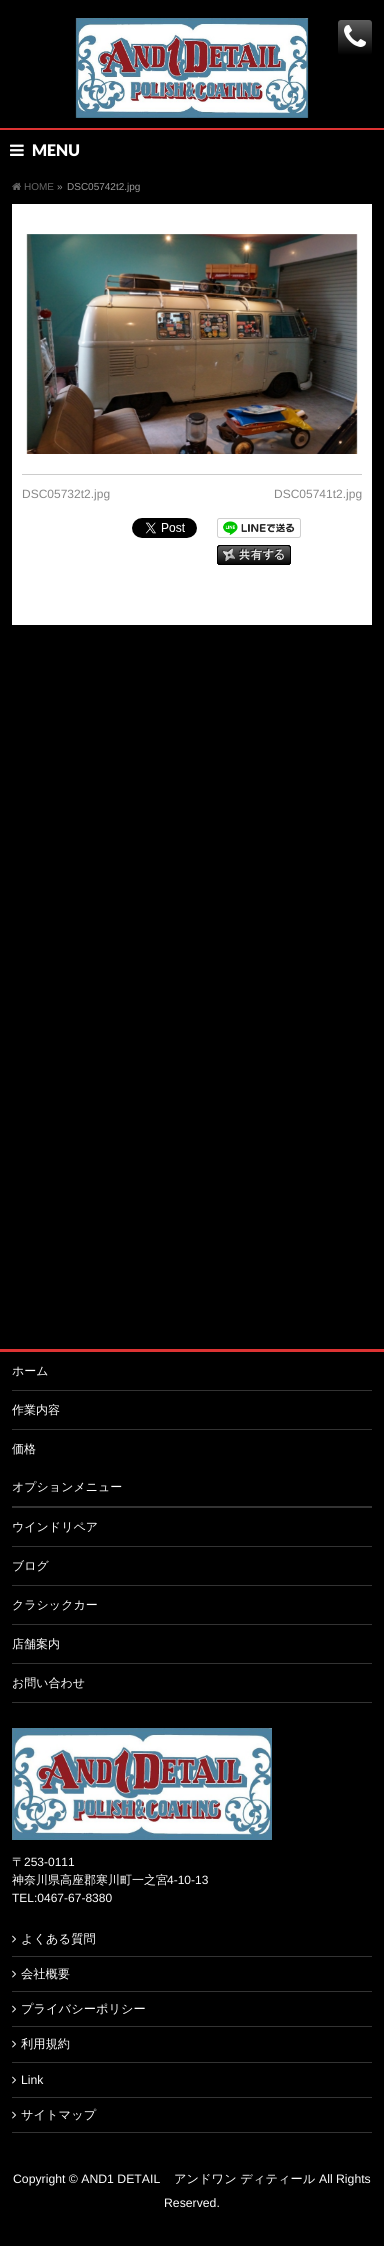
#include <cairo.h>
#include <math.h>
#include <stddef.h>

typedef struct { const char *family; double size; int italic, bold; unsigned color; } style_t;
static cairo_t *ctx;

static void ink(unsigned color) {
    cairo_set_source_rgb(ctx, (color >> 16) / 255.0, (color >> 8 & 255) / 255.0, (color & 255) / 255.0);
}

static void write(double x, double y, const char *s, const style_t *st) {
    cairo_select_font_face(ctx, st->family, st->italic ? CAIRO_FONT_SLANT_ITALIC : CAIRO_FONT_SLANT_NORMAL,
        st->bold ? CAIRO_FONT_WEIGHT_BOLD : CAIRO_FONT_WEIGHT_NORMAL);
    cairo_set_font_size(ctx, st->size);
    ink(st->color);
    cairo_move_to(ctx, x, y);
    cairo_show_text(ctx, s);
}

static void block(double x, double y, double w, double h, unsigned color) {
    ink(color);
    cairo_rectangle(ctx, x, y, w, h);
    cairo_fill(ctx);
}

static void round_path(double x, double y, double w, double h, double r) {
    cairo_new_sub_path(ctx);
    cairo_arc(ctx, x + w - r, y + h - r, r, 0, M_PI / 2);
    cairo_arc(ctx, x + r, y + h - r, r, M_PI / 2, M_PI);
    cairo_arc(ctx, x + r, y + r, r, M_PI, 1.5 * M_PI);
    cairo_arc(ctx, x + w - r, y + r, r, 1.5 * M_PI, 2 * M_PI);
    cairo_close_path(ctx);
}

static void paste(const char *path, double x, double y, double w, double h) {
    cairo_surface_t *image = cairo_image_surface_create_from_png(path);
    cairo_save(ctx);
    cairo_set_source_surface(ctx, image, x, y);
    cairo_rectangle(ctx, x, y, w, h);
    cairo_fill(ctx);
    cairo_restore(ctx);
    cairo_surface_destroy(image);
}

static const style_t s1 = {"Lato Black", 16, 0, 0, 0xffffff};
static const style_t s2 = {"Liberation Sans", 10, 0, 0, 0x666666};
static const style_t s3 = {"Liberation Sans", 10, 0, 0, 0x999999};
static const style_t s4 = {"Liberation Sans", 12, 0, 0, 0x888888};
static const style_t s5 = {"WenQuanYi Zen Hei Medium", 12, 0, 0, 0xffffff};
static const style_t s6 = {"Liberation Sans", 12, 0, 0, 0xffffff};
static const style_t s7 = {"WenQuanYi Zen Hei Medium", 12.25, 0, 0, 0xffffff};
static const style_t s8 = {"Liberation Sans", 12.25, 0, 0, 0xffffff};

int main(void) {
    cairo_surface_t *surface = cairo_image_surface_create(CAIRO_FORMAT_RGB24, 384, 2246);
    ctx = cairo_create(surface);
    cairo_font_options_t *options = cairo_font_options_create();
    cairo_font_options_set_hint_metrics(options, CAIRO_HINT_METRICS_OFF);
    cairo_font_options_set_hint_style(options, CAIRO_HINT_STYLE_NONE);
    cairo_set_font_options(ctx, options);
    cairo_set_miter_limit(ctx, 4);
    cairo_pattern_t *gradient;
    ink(0x000000);
    cairo_paint(ctx);
    paste("pic1.png", 75, 18, 234, 100);
    gradient = cairo_pattern_create_linear(355, 20, 355, 55);
    cairo_pattern_add_color_stop_rgba(gradient, 0, 0.369, 0.369, 0.369, 1);
    cairo_pattern_add_color_stop_rgba(gradient, 1, 0, 0, 0, 1);
    cairo_set_source(ctx, gradient);
    cairo_pattern_destroy(gradient);
    round_path(338, 20, 34, 35, 3);
    cairo_fill(ctx);
    paste("pic2.png", 344, 25, 22, 22);
    block(0, 128, 384, 2, 0xdd3333);
    paste("pic3.png", 10, 144, 14, 12);
    write(32, 156, "MENU", &s1);
    paste("pic4.png", 12, 182, 9, 8);
    write(24, 190, "HOME", &s2);
    write(57, 190, "»", &s3);
    write(67, 190, "DSC05742t2.jpg", &s3);
    block(12, 204, 360, 421, 0xffffff);
    paste("pic5.png", 26, 234, 332, 220);
    block(22, 474, 340, 1, 0xcccccc);
    write(22, 498, "DSC05732t2.jpg", &s4);
    write(274, 498, "DSC05741t2.jpg", &s4);
    paste("pic6.png", 132, 518, 65, 20);
    paste("pic7.png", 217, 518, 84, 20);
    paste("pic8.png", 217, 545, 74, 20);
    block(0, 1349, 384, 3, 0xdd3333);
    block(12, 1390, 360, 1, 0x333333);
    write(12, 1375, "ホーム", &s5);
    block(12, 1429, 360, 1, 0x333333);
    write(12, 1414, "作業内容", &s5);
    block(12, 1506, 360, 2, 0x333333);
    write(12, 1453, "価格", &s5);
    write(12, 1491, "オプションメニュー", &s5);
    block(12, 1546, 360, 1, 0x333333);
    write(12, 1531, "ウインドリペア", &s5);
    block(12, 1585, 360, 1, 0x333333);
    write(12, 1570, "ブログ", &s5);
    block(12, 1624, 360, 1, 0x333333);
    write(12, 1609, "クラシックカー", &s5);
    block(12, 1663, 360, 1, 0x333333);
    write(12, 1648, "店舗案内", &s5);
    block(12, 1702, 360, 1, 0x333333);
    write(12, 1687, "お問い合わせ", &s5);
    paste("pic9.png", 12, 1728, 260, 112);
    write(12, 1866, "〒", &s5);
    write(24, 1866, "253-0111", &s6);
    write(12, 1884, "神奈川県高座郡寒川町一之宮", &s5);
    write(167, 1884, "4-10-13", &s6);
    write(12, 1902, "TEL:0467-67-8380", &s6);
    block(12, 1956, 360, 1, 0x333333);
    paste("pic10.png", 12, 1935, 4, 8);
    write(21, 1943, "よくある質問", &s7);
    block(12, 1991, 360, 1, 0x333333);
    paste("pic10.png", 12, 1970, 4, 8);
    write(21, 1978, "会社概要", &s7);
    block(12, 2026, 360, 1, 0x333333);
    paste("pic10.png", 12, 2005, 4, 8);
    write(21, 2013, "プライバシーポリシー", &s7);
    block(12, 2062, 360, 1, 0x333333);
    paste("pic10.png", 12, 2040, 4, 8);
    write(21, 2048, "利用規約", &s7);
    block(12, 2097, 360, 1, 0x333333);
    paste("pic10.png", 12, 2076, 4, 8);
    write(21, 2084, "Link", &s8);
    block(12, 2132, 360, 1, 0x333333);
    paste("pic10.png", 12, 2111, 4, 8);
    write(21, 2119, "サイトマップ", &s7);
    write(13, 2183, "Copyright © AND1 DETAIL", &s8);
    write(174, 2183, "アンドワン ディティール", &s7);
    write(319, 2183, "All Rights", &s8);
    write(164, 2207, "Reserved.", &s8);
    cairo_surface_write_to_png(surface, "screenshot.png");
    cairo_font_options_destroy(options);
    cairo_destroy(ctx);
    cairo_surface_destroy(surface);
    return 0;
}
